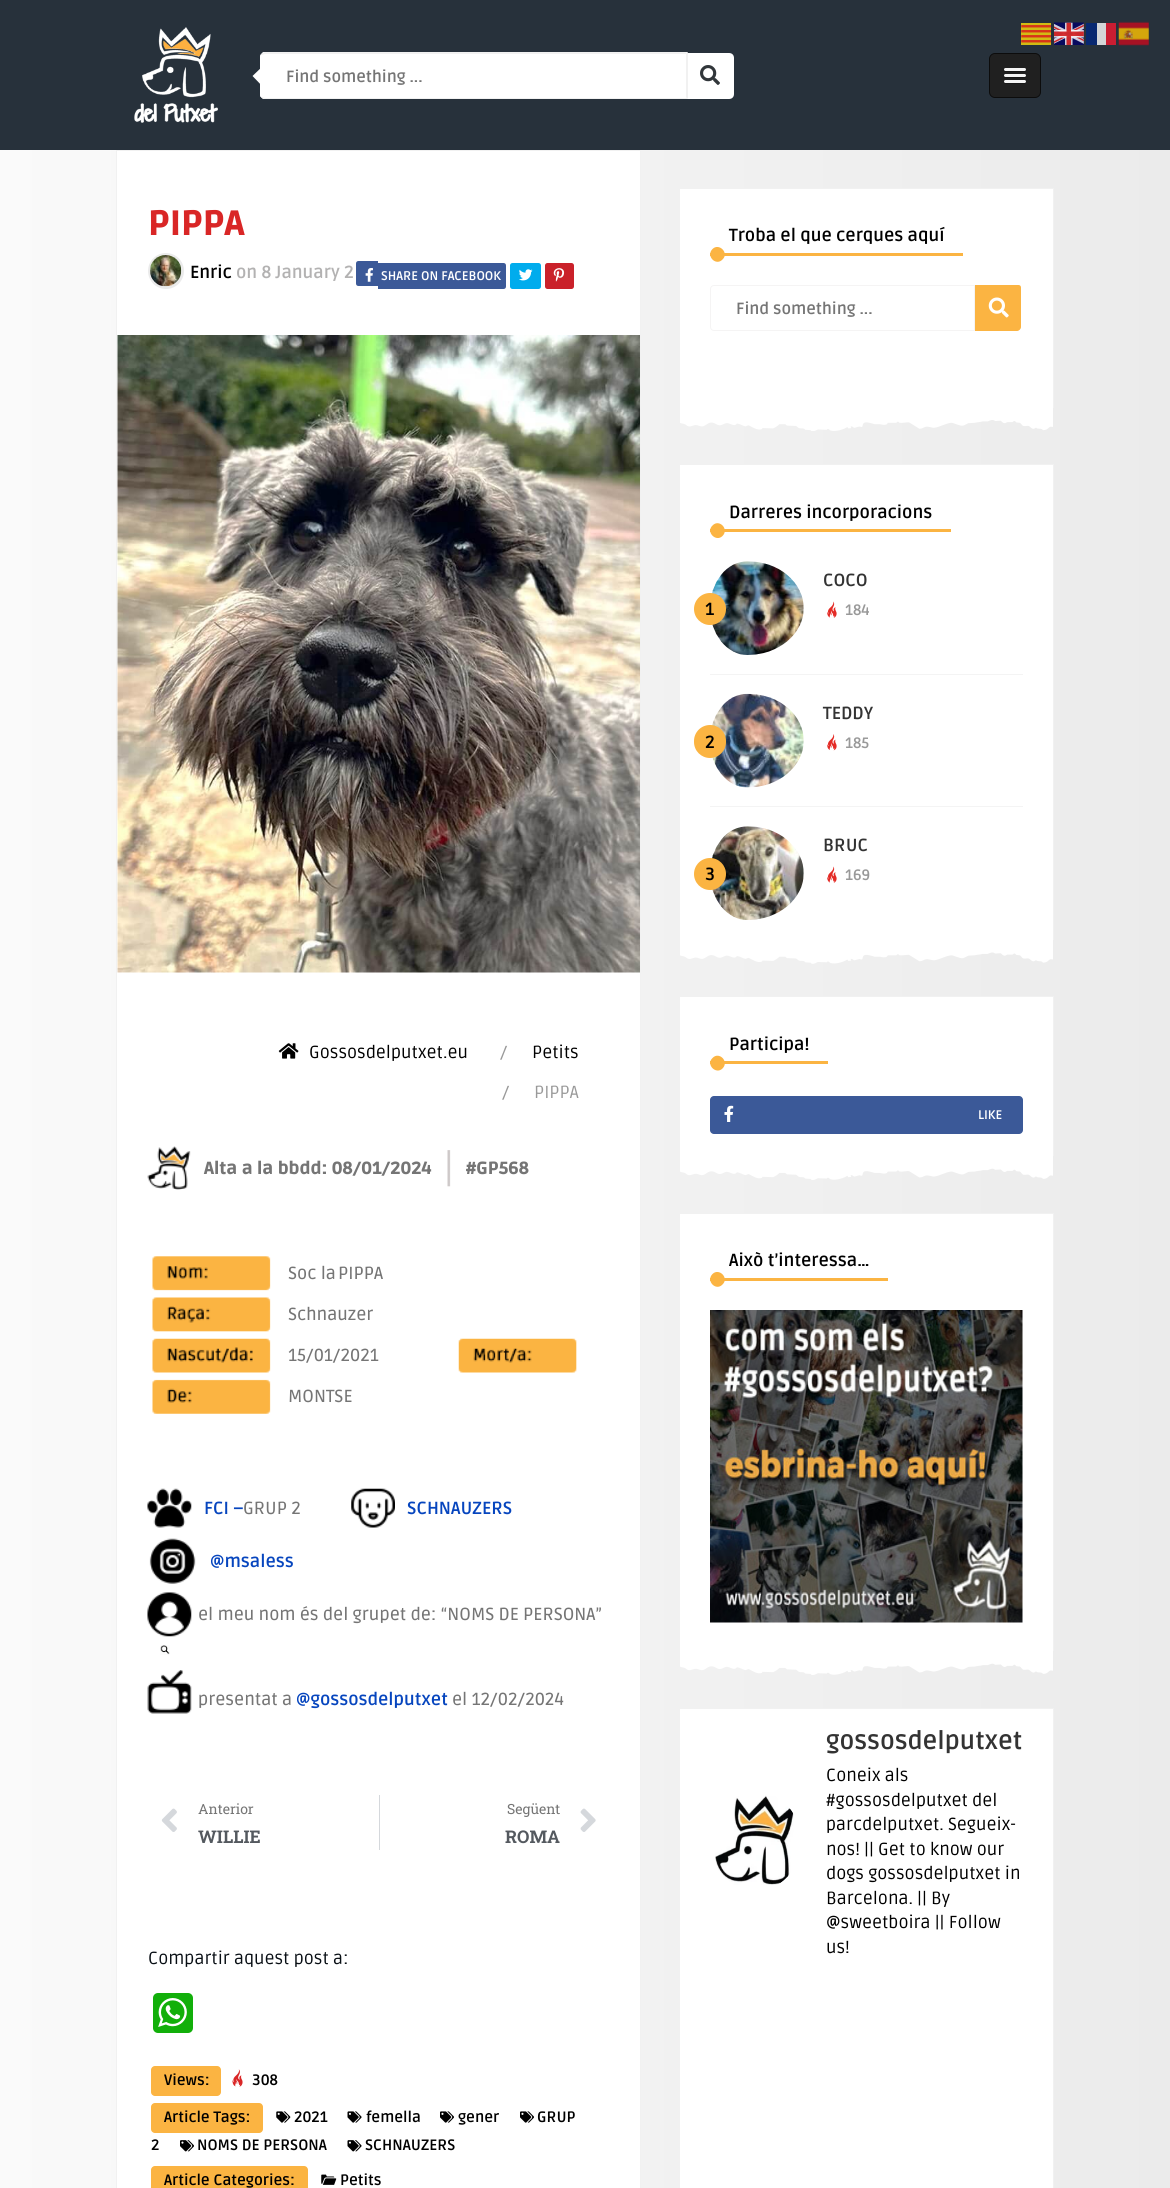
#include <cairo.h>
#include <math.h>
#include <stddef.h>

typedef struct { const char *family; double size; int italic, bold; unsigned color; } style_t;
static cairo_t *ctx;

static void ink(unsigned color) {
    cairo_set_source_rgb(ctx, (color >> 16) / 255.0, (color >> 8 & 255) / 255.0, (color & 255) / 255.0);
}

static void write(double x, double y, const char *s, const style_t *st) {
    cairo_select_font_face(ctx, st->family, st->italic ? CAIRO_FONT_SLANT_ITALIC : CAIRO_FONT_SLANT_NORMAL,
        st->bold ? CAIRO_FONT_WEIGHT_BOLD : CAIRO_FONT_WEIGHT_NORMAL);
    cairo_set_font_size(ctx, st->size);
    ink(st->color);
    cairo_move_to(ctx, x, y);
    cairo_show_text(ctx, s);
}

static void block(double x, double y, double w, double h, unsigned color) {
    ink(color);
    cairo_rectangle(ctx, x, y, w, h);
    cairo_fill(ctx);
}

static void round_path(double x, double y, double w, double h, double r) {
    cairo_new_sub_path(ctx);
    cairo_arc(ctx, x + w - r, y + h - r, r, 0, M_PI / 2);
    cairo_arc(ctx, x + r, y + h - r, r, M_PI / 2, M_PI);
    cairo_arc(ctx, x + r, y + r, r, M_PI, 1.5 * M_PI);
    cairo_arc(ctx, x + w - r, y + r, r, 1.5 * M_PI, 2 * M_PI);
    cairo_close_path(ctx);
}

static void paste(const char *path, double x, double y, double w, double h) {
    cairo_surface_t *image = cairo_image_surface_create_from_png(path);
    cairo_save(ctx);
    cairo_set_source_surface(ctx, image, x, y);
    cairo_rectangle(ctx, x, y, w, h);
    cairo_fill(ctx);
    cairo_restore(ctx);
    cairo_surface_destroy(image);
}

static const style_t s1 = {"Ruda", 16.25, 0, 1, 0x757575};
static const style_t s2 = {"Ruda Black", 35, 0, 0, 0xd92626};
static const style_t s3 = {"Ruda", 17.5, 0, 1, 0x000000};
static const style_t s4 = {"Ruda", 17.5, 0, 1, 0xb3b2b2};
static const style_t s5 = {"Ruda", 12.5, 0, 1, 0xffffff};
static const style_t s6 = {"Ruda", 17.5, 0, 0, 0x000000};
static const style_t s7 = {"Ruda", 17.5, 0, 0, 0x999999};
static const style_t s8 = {"Ruda Black", 17.5, 0, 0, 0x757575};
static const style_t s9 = {"Ruda Medium", 17.5, 0, 0, 0x757575};
static const style_t s10 = {"Ruda", 17.5, 0, 1, 0x0645be};
static const style_t s11 = {"Roboto Slab", 14, 0, 0, 0x757575};
static const style_t s12 = {"Roboto Slab", 17.5, 0, 1, 0x54595f};
static const style_t s13 = {"Ruda", 17.5, 0, 0, 0x080e14};
static const style_t s14 = {"Ruda", 15, 0, 1, 0x000000};
static const style_t s15 = {"Ruda", 17.5, 0, 1, 0x333333};
static const style_t s16 = {"Ruda", 15, 0, 1, 0x999999};
static const style_t s17 = {"Ruda", 25, 0, 1, 0x333333};

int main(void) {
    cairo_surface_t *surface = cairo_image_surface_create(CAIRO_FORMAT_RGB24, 1170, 2188);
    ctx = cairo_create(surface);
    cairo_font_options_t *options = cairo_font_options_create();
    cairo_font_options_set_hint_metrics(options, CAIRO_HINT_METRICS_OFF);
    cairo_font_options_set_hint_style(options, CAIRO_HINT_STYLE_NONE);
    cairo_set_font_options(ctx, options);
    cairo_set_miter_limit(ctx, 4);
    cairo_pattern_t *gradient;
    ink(0xffffff);
    cairo_paint(ctx);
    gradient = cairo_pattern_create_linear(0, 1928, 1170, 1928);
    cairo_pattern_add_color_stop_rgba(gradient, 0, 0.98, 0.98, 0.98, 1);
    cairo_pattern_add_color_stop_rgba(gradient, 1, 0.922, 0.922, 0.922, 1);
    cairo_set_source(ctx, gradient);
    cairo_pattern_destroy(gradient);
    cairo_rectangle(ctx, 0, 150, 1170, 2038);
    cairo_fill(ctx);
    block(0, 0, 1170, 150, 0x27313b);
    paste("pic1.png", 1021, 23, 30, 22);
    paste("pic2.png", 1054, 22, 30, 23);
    block(1086, 23, 11, 22, 0x082871);
    block(1097, 23, 9, 22, 0xd4d6d8);
    block(1106, 23, 10, 22, 0xca1d32);
    paste("pic3.png", 1118, 21, 31, 25);
    paste("pic4.png", 134, 27, 84, 96);
    ink(0xffffff);
    cairo_new_path(ctx);
    cairo_move_to(ctx, 265, 53);
    cairo_line_to(ctx, 688, 53);
    cairo_line_to(ctx, 688, 99);
    cairo_line_to(ctx, 265, 99);
    cairo_curve_to(ctx, 262, 99, 260, 97, 260, 94);
    cairo_line_to(ctx, 260, 58);
    cairo_curve_to(ctx, 260, 55, 262, 53, 265, 53);
    cairo_close_path(ctx);
    cairo_fill(ctx);
    ink(0xf1f1f1);
    cairo_new_path(ctx);
    cairo_move_to(ctx, 265, 54);
    cairo_line_to(ctx, 262, 55);
    cairo_line_to(ctx, 261, 54);
    cairo_line_to(ctx, 263, 52);
    cairo_line_to(ctx, 688, 52);
    cairo_line_to(ctx, 686, 54);
    cairo_close_path(ctx);
    cairo_fill(ctx);
    ink(0xffffff);
    cairo_new_path(ctx);
    cairo_move_to(ctx, 260, 58);
    cairo_line_to(ctx, 260, 94);
    cairo_curve_to(ctx, 260, 95, 260, 97, 261, 97);
    cairo_line_to(ctx, 262, 97);
    cairo_curve_to(ctx, 261, 96, 261, 95, 261, 94);
    cairo_line_to(ctx, 261, 58);
    cairo_curve_to(ctx, 261, 56, 262, 55, 262, 55);
    cairo_line_to(ctx, 261, 54);
    cairo_curve_to(ctx, 260, 55, 260, 56, 260, 58);
    cairo_close_path(ctx);
    cairo_fill(ctx);
    cairo_new_path(ctx);
    cairo_move_to(ctx, 265, 64);
    cairo_line_to(ctx, 265, 89);
    cairo_line_to(ctx, 252.5, 76);
    cairo_close_path(ctx);
    cairo_fill(ctx);
    ink(0xf1f1f1);
    cairo_new_path(ctx);
    cairo_move_to(ctx, 688, 52);
    cairo_line_to(ctx, 686, 54);
    cairo_line_to(ctx, 686, 97);
    cairo_line_to(ctx, 688, 99);
    cairo_close_path(ctx);
    cairo_fill(ctx);
    cairo_new_path(ctx);
    cairo_move_to(ctx, 688, 99);
    cairo_line_to(ctx, 263, 99);
    cairo_line_to(ctx, 261, 97);
    cairo_line_to(ctx, 262, 97);
    cairo_line_to(ctx, 265, 98);
    cairo_line_to(ctx, 686, 98);
    cairo_line_to(ctx, 686, 97);
    cairo_close_path(ctx);
    cairo_fill(ctx);
    write(286, 82, "Find something ...", &s1);
    ink(0xffffff);
    cairo_new_path(ctx);
    cairo_move_to(ctx, 688, 53);
    cairo_line_to(ctx, 729, 53);
    cairo_curve_to(ctx, 732, 53, 734, 55, 734, 58);
    cairo_line_to(ctx, 734, 94);
    cairo_curve_to(ctx, 734, 97, 732, 99, 729, 99);
    cairo_line_to(ctx, 688, 99);
    cairo_close_path(ctx);
    cairo_fill(ctx);
    paste("pic5.png", 700, 65, 20, 20);
    ink(0x202020);
    round_path(989.5, 53.5, 51, 44, 5.5);
    cairo_fill_preserve(ctx);
    ink(0x0c0c0c);
    cairo_set_line_width(ctx, 1);
    cairo_stroke(ctx);
    ink(0x181818);
    cairo_new_path(ctx);
    cairo_move_to(ctx, 1004, 69.5);
    cairo_curve_to(ctx, 1002.5, 72.5, 1008, 72, 1008.5, 72);
    cairo_line_to(ctx, 1021.5, 72);
    cairo_curve_to(ctx, 1022, 72, 1027.5, 72.5, 1026, 69.5);
    cairo_curve_to(ctx, 1025, 70, 1005, 70, 1004, 69.5);
    cairo_close_path(ctx);
    cairo_fill(ctx);
    ink(0xf5f5f5);
    round_path(1004, 68, 22, 3, 1.5);
    cairo_fill(ctx);
    ink(0x181818);
    cairo_new_path(ctx);
    cairo_move_to(ctx, 1004, 76);
    cairo_curve_to(ctx, 1003, 78.5, 1008, 78, 1008.5, 78);
    cairo_line_to(ctx, 1021.5, 78);
    cairo_curve_to(ctx, 1022, 78, 1027, 78.5, 1026, 76);
    cairo_curve_to(ctx, 1025, 76.5, 1005, 76.5, 1004, 76);
    cairo_close_path(ctx);
    cairo_fill(ctx);
    ink(0xf5f5f5);
    round_path(1004, 74, 22, 3, 1.5);
    cairo_fill(ctx);
    ink(0x181818);
    cairo_new_path(ctx);
    cairo_move_to(ctx, 1004, 82);
    cairo_curve_to(ctx, 1003.5, 84.5, 1008, 84, 1008.5, 84);
    cairo_line_to(ctx, 1021.5, 84);
    cairo_curve_to(ctx, 1022, 84, 1026.5, 84.5, 1026, 82);
    cairo_curve_to(ctx, 1025, 83, 1005, 83, 1004, 82);
    cairo_close_path(ctx);
    cairo_fill(ctx);
    ink(0xf5f5f5);
    round_path(1004, 80, 22, 3, 1.5);
    cairo_fill(ctx);
    ink(0xffffff);
    cairo_rectangle(ctx, 116.5, 150.5, 524, 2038);
    cairo_fill_preserve(ctx);
    ink(0xf1f1f1);
    cairo_stroke(ctx);
    write(148, 235, "PIPPA", &s2);
    cairo_new_path(ctx);
    cairo_arc(ctx, 166, 271, 16.5, 0, 2 * M_PI);
    ink(0xebebeb);
    cairo_set_line_width(ctx, 3);
    cairo_stroke(ctx);
    paste("pic6.png", 150, 255, 32, 32);
    write(190, 278, "Enric", &s3);
    write(236, 278, "on 8 January 2", &s4);
    ink(0x3b5998);
    cairo_new_path(ctx);
    cairo_move_to(ctx, 358.5, 261);
    cairo_line_to(ctx, 378, 261);
    cairo_line_to(ctx, 378, 286);
    cairo_line_to(ctx, 358.5, 286);
    cairo_curve_to(ctx, 357, 286, 356, 285, 356, 283.5);
    cairo_line_to(ctx, 356, 263.5);
    cairo_curve_to(ctx, 356, 262, 357, 261, 358.5, 261);
    cairo_close_path(ctx);
    cairo_fill(ctx);
    block(378, 263, 2, 26, 0x3b5998);
    cairo_new_path(ctx);
    cairo_move_to(ctx, 380, 263);
    cairo_line_to(ctx, 503.5, 263);
    cairo_curve_to(ctx, 505, 263, 506, 264, 506, 265.5);
    cairo_line_to(ctx, 506, 286.5);
    cairo_curve_to(ctx, 506, 288, 505, 289, 503.5, 289);
    cairo_line_to(ctx, 380, 289);
    cairo_close_path(ctx);
    cairo_fill(ctx);
    paste("pic7.png", 365, 268, 8, 14);
    write(381, 280, "SHARE ON FACEBOOK", &s5);
    ink(0x00aced);
    round_path(510, 263, 31, 26, 2.5);
    cairo_fill(ctx);
    paste("pic8.png", 519, 269, 14, 12);
    ink(0xca212a);
    round_path(545, 263, 29, 26, 2.5);
    cairo_fill(ctx);
    paste("pic9.png", 553, 268, 12, 14);
    paste("pic10.png", 117, 335, 523, 638);
    paste("pic11.png", 278, 1043, 21, 16);
    write(309, 1058, "Gossosdelputxet.eu", &s6);
    write(500, 1058, "/", &s7);
    write(532, 1058, "Petits", &s6);
    write(502, 1098, "/", &s7);
    write(534, 1098, "PIPPA", &s7);
    paste("pic12.png", 147, 1146, 44, 44);
    write(204, 1174, "Alta a la bbdd: 08/01/2024", &s8);
    paste("pic13.png", 447, 1150, 4, 37);
    write(466, 1174, "#GP568", &s8);
    paste("pic14.png", 152, 1256, 119, 35);
    write(288, 1279, "Soc la", &s9);
    write(338, 1279, "PIPPA", &s9);
    paste("pic15.png", 152, 1297, 119, 35);
    write(288, 1320, "Schnauzer", &s9);
    paste("pic16.png", 152, 1338, 119, 35);
    write(288, 1361, "15/01/2021", &s9);
    paste("pic17.png", 458, 1338, 119, 35);
    paste("pic18.png", 152, 1379, 119, 35);
    write(288, 1402, "MONTSE", &s9);
    paste("pic19.png", 147, 1488, 45, 40);
    write(204, 1514, "FCI –", &s10);
    write(243, 1514, "GRUP 2", &s9);
    paste("pic20.png", 351, 1488, 44, 40);
    write(407, 1514, "SCHNAUZERS", &s10);
    paste("pic21.png", 149, 1538, 47, 46);
    write(210, 1567, "@msaless", &s10);
    paste("pic22.png", 147, 1592, 45, 45);
    write(198, 1620, "el meu nom és del grupet de: “NOMS DE PERSONA”", &s9);
    paste("pic23.png", 160, 1645, 10, 10);
    paste("pic24.png", 147, 1670, 45, 44);
    write(198, 1705, "presentat a", &s9);
    write(296, 1705, "@gossosdelputxet", &s10);
    write(452, 1705, "el 12/02/2024", &s9);
    paste("pic25.png", 161, 1808, 16, 24);
    write(198, 1814, "Anterior", &s11);
    write(198, 1843, "WILLIE", &s12);
    block(379, 1795, 1, 55, 0xd5d8dc);
    write(507, 1814, "Següent", &s11);
    write(505, 1843, "ROMA", &s12);
    paste("pic26.png", 580, 1808, 16, 24);
    write(148, 1964, "Compartir aquest post a:", &s13);
    ink(0x12af0a);
    round_path(153, 1993, 40, 40, 5);
    cairo_fill(ctx);
    paste("pic27.png", 158, 1998, 29, 29);
    ink(0xfbb442);
    round_path(151, 2066, 70, 30, 4);
    cairo_fill(ctx);
    write(164, 2085, "Views:", &s14);
    paste("pic28.png", 232, 2069, 11, 18);
    write(252, 2085, "308", &s14);
    ink(0xfbb442);
    round_path(151, 2103, 112, 30, 4);
    cairo_fill(ctx);
    write(164, 2122, "Article Tags:", &s14);
    paste("pic29.png", 276, 2111, 15, 12);
    write(294, 2122, "2021", &s14);
    paste("pic30.png", 347, 2111, 15, 12);
    write(366, 2122, "femella", &s14);
    paste("pic31.png", 440, 2111, 14, 12);
    write(458, 2122, "gener", &s14);
    paste("pic31.png", 520, 2111, 14, 12);
    write(537, 2122, "GRUP", &s14);
    write(151, 2150, "2", &s14);
    paste("pic32.png", 180, 2140, 14, 12);
    write(197, 2150, "NOMS DE PERSONA", &s14);
    paste("pic33.png", 347, 2140, 15, 12);
    write(365, 2150, "SCHNAUZERS", &s14);
    ink(0xfbb442);
    round_path(151, 2166, 157, 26, 4);
    cairo_fill(ctx);
    write(164, 2185, "Article Categories:", &s14);
    paste("pic34.png", 321, 2174, 16, 11);
    write(340, 2185, "Petits", &s14);
    ink(0xffffff);
    cairo_rectangle(ctx, 679.5, 188.5, 374, 219);
    cairo_fill_preserve(ctx);
    ink(0xf1f1f1);
    cairo_set_line_width(ctx, 1);
    cairo_stroke(ctx);
    block(710, 253, 253, 3, 0xfbb442);
    write(729, 241, "Troba el que cerques aquí", &s3);
    ink(0xfbb442);
    cairo_new_path(ctx);
    cairo_move_to(ctx, 712.5, 249);
    cairo_curve_to(ctx, 719, 242.5, 729.5, 253, 722.5, 259.5);
    cairo_curve_to(ctx, 716, 266.5, 705.5, 256, 712.5, 249);
    cairo_close_path(ctx);
    cairo_fill(ctx);
    cairo_new_path(ctx);
    cairo_move_to(ctx, 714, 285.5);
    cairo_line_to(ctx, 974.5, 285.5);
    cairo_line_to(ctx, 974.5, 330.5);
    cairo_line_to(ctx, 714, 330.5);
    cairo_curve_to(ctx, 712, 330.5, 710.5, 329, 710.5, 327);
    cairo_line_to(ctx, 710.5, 289);
    cairo_curve_to(ctx, 710.5, 287, 712, 285.5, 714, 285.5);
    cairo_close_path(ctx);
    ink(0xf5f4f4);
    cairo_stroke(ctx);
    write(736, 314, "Find something ...", &s1);
    ink(0xfbb442);
    cairo_new_path(ctx);
    cairo_move_to(ctx, 975, 285);
    cairo_line_to(ctx, 1018.5, 285);
    cairo_curve_to(ctx, 1020, 285, 1021, 286, 1021, 287.5);
    cairo_line_to(ctx, 1021, 327);
    cairo_curve_to(ctx, 1021, 329, 1019, 331, 1017, 331);
    cairo_line_to(ctx, 975, 331);
    cairo_close_path(ctx);
    cairo_fill(ctx);
    paste("pic35.png", 988, 297, 21, 21);
    paste("pic36.png", 680, 407, 373, 24);
    ink(0xffffff);
    cairo_rectangle(ctx, 679.5, 464.5, 374, 475);
    cairo_fill_preserve(ctx);
    ink(0xf1f1f1);
    cairo_stroke(ctx);
    block(710, 529, 241, 3, 0xfbb442);
    write(729, 518, "Darreres incorporacions", &s3);
    ink(0xfbb442);
    cairo_new_path(ctx);
    cairo_move_to(ctx, 712.5, 525.5);
    cairo_curve_to(ctx, 719, 518.5, 729.5, 529, 722.5, 536);
    cairo_curve_to(ctx, 716, 542.5, 705.5, 532, 712.5, 525.5);
    cairo_close_path(ctx);
    cairo_fill(ctx);
    block(710, 674, 313, 1, 0xf4f4f4);
    paste("pic37.png", 712, 561, 92, 94);
    ink(0xfbb442);
    cairo_arc(ctx, 710, 609, 16, 0, 2 * M_PI);
    cairo_fill(ctx);
    write(705, 615, "1", &s3);
    write(823, 586, "COCO", &s15);
    paste("pic38.png", 827, 601, 10, 17);
    write(845, 615, "184", &s16);
    block(710, 806, 313, 1, 0xf4f4f4);
    paste("pic39.png", 712, 693, 92, 95);
    ink(0xfbb442);
    round_path(694, 725, 32, 33, 16);
    cairo_fill(ctx);
    write(705, 748, "2", &s3);
    write(823, 719, "TEDDY", &s15);
    paste("pic40.png", 827, 734, 10, 17);
    write(845, 748, "185", &s16);
    paste("pic41.png", 712, 826, 92, 94);
    ink(0xfbb442);
    cairo_arc(ctx, 710, 874, 16, 0, 2 * M_PI);
    cairo_fill(ctx);
    write(705, 880, "3", &s3);
    write(823, 851, "BRUC", &s15);
    paste("pic38.png", 827, 866, 10, 17);
    write(845, 880, "169", &s16);
    paste("pic42.png", 680, 939, 373, 25);
    ink(0xffffff);
    cairo_rectangle(ctx, 679.5, 996.5, 374, 159);
    cairo_fill_preserve(ctx);
    ink(0xf1f1f1);
    cairo_stroke(ctx);
    block(710, 1061, 118, 3, 0xfbb442);
    write(729, 1050, "Participa!", &s3);
    ink(0xfbb442);
    cairo_new_path(ctx);
    cairo_move_to(ctx, 712.5, 1058);
    cairo_curve_to(ctx, 719, 1051, 729.5, 1061.5, 722.5, 1068.5);
    cairo_curve_to(ctx, 716, 1075, 705.5, 1064.5, 712.5, 1058);
    cairo_close_path(ctx);
    cairo_fill(ctx);
    ink(0x3b5998);
    round_path(710, 1096, 313, 38, 4);
    cairo_fill(ctx);
    paste("pic43.png", 724, 1105, 10, 17);
    write(978, 1119, "LIKE", &s5);
    paste("pic44.png", 680, 1155, 373, 25);
    cairo_rectangle(ctx, 679.5, 1213.5, 374, 437);
    cairo_fill_preserve(ctx);
    ink(0xf1f1f1);
    cairo_stroke(ctx);
    block(710, 1278, 178, 3, 0xfbb442);
    write(729, 1266, "Això t’interessa…", &s3);
    ink(0xfbb442);
    cairo_new_path(ctx);
    cairo_move_to(ctx, 712.5, 1274);
    cairo_curve_to(ctx, 719, 1267.5, 729.5, 1278, 722.5, 1284.5);
    cairo_curve_to(ctx, 716, 1291.5, 705.5, 1281, 712.5, 1274);
    cairo_close_path(ctx);
    cairo_fill(ctx);
    paste("pic45.png", 710, 1310, 313, 313);
    paste("pic44.png", 680, 1650, 373, 25);
    ink(0xffffff);
    cairo_rectangle(ctx, 679.5, 1708.5, 374, 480);
    cairo_fill_preserve(ctx);
    ink(0xf1f1f1);
    cairo_stroke(ctx);
    paste("pic46.png", 715, 1795, 79, 90);
    write(826, 1749, "gossosdelputxet", &s17);
    write(826, 1781, "Coneix als", &s6);
    write(826, 1806, "#gossosdelputxet del", &s6);
    write(826, 1830, "parcdelputxet. Segueix-", &s6);
    write(826, 1855, "nos! || Get to know our", &s6);
    write(826, 1879, "dogs gossosdelputxet in", &s6);
    write(826, 1904, "Barcelona. || By", &s6);
    write(826, 1928, "@sweetboira || Follow", &s6);
    write(826, 1953, "us!", &s6);
    cairo_surface_write_to_png(surface, "screenshot.png");
    cairo_font_options_destroy(options);
    cairo_destroy(ctx);
    cairo_surface_destroy(surface);
    return 0;
}
